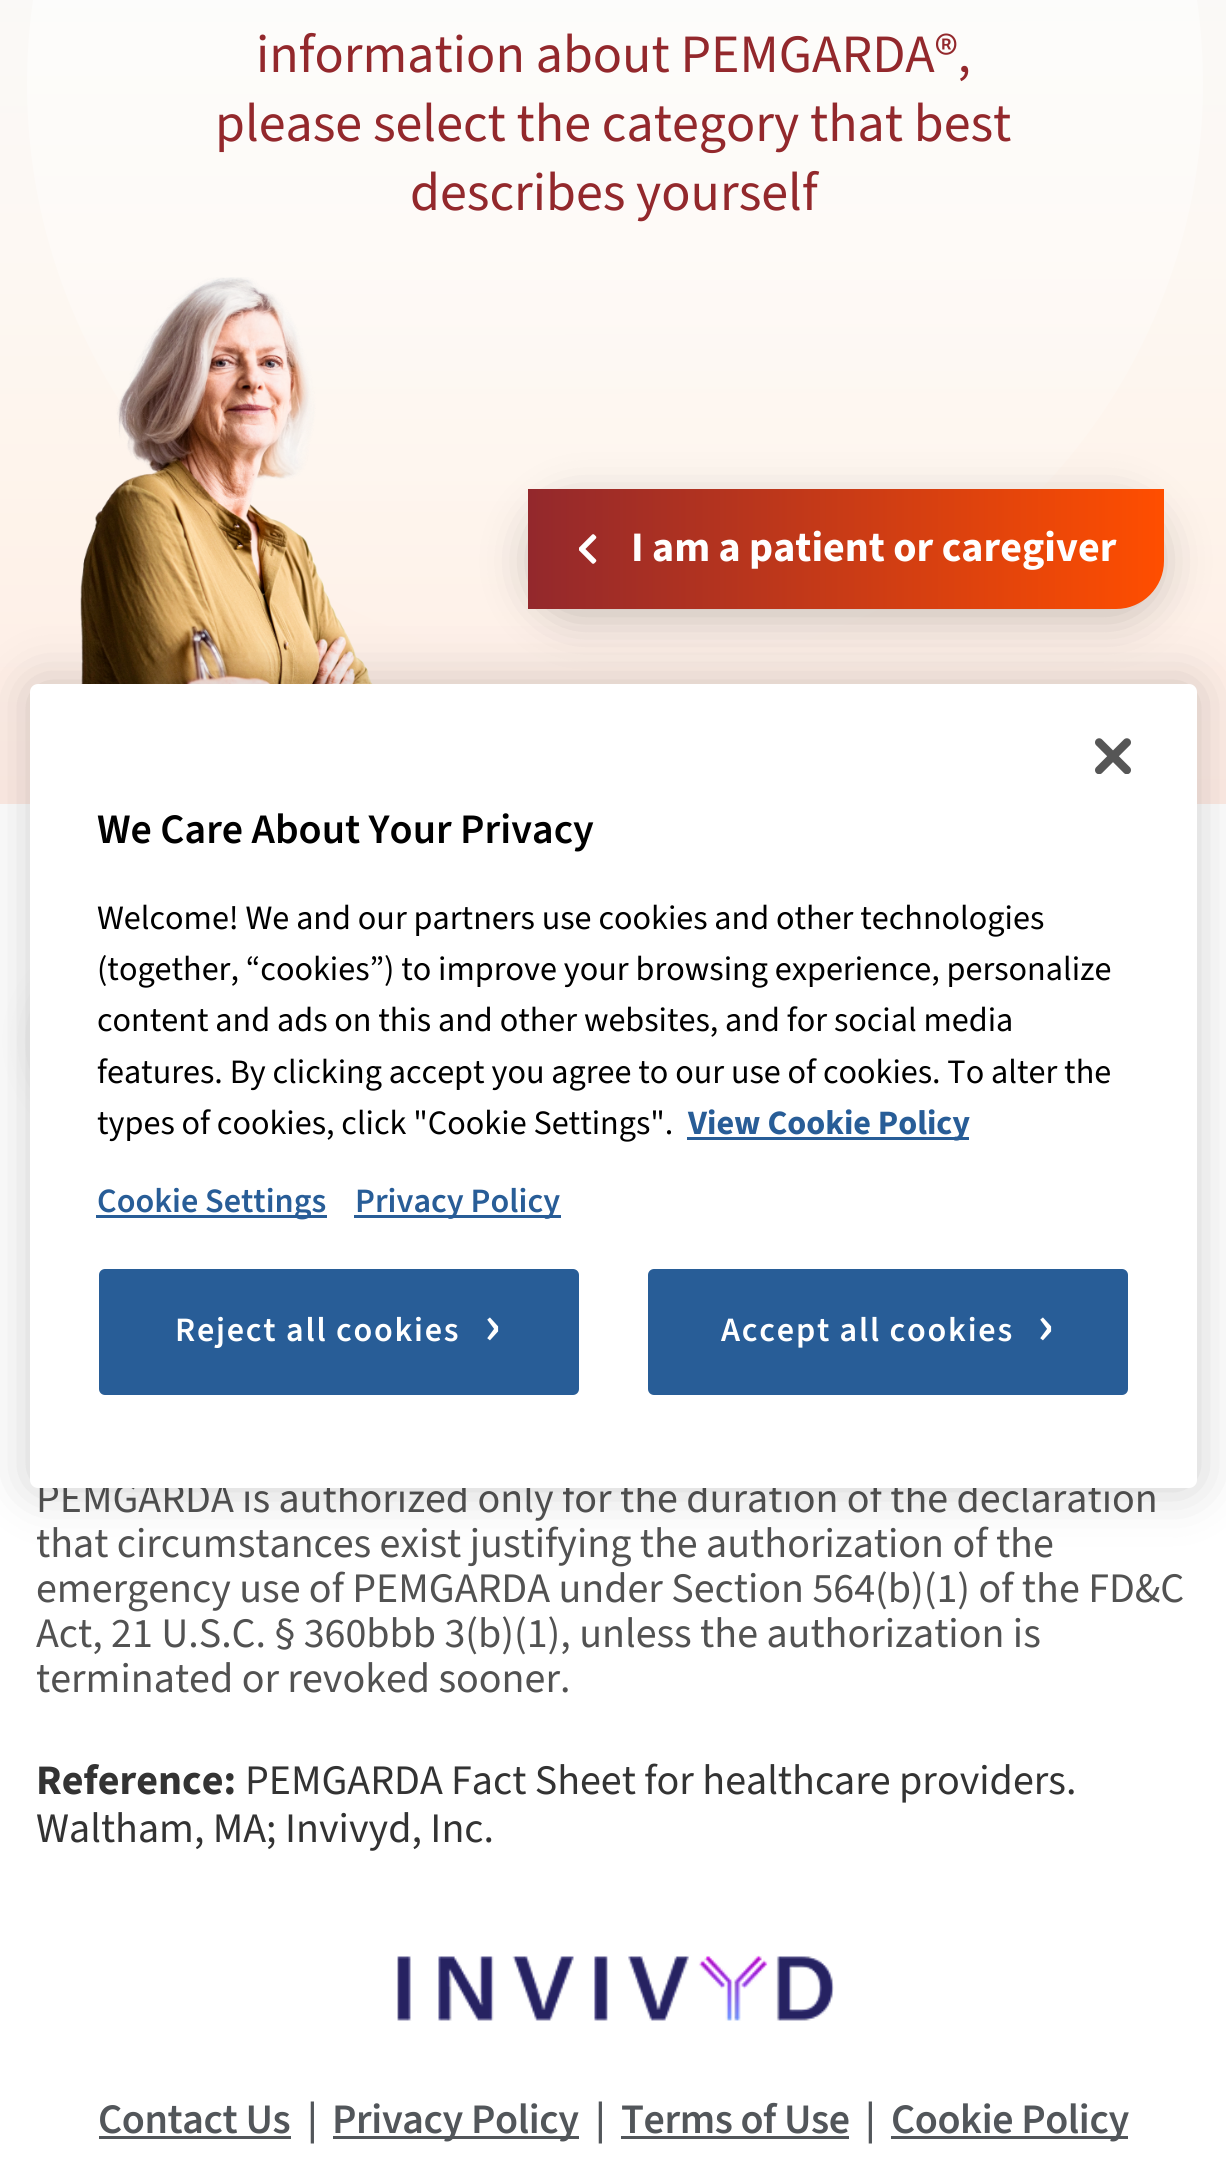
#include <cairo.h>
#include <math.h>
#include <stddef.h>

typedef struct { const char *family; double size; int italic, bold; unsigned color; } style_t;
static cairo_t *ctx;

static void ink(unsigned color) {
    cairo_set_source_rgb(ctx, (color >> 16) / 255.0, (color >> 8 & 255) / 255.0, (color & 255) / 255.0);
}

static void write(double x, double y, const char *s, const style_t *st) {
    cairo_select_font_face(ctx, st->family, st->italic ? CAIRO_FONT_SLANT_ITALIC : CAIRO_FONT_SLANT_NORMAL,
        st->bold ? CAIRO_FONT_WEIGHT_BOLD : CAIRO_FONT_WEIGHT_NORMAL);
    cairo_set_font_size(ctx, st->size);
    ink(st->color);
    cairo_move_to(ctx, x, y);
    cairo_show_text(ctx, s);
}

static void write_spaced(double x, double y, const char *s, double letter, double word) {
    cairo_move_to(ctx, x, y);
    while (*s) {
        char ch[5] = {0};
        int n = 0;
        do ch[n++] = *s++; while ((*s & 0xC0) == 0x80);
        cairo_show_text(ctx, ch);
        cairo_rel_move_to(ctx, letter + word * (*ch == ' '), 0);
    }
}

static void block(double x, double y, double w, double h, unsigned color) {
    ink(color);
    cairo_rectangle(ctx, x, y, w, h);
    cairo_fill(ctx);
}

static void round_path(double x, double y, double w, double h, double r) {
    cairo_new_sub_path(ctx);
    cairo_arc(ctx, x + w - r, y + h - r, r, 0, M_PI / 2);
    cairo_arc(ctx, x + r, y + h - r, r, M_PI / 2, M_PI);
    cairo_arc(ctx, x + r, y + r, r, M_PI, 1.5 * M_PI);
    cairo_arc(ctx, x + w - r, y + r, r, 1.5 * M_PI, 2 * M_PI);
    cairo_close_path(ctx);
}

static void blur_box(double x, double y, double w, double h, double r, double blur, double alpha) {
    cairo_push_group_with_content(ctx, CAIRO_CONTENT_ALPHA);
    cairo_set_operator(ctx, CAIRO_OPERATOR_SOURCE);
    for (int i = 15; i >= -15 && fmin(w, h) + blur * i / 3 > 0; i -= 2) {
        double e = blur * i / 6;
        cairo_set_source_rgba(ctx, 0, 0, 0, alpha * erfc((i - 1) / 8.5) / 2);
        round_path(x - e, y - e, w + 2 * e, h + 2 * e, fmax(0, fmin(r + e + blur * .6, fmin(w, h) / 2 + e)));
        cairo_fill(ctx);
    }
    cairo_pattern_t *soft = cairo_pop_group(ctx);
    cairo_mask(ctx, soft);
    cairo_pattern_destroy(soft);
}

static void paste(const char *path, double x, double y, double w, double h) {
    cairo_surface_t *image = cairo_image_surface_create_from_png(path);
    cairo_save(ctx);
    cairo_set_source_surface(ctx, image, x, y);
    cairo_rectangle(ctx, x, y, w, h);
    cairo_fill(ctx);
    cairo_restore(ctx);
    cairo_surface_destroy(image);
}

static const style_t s1 = {"Source Sans 3", 54, 0, 0, 0x93282c};
static const style_t s2 = {"Source Sans 3", 42, 0, 1, 0xffffff};
static const style_t s3 = {"Source Sans 3", 42, 0, 0, 0x525252};
static const style_t s4 = {"Source Sans 3", 42, 0, 1, 0x333333};
static const style_t s5 = {"Source Sans 3", 42, 0, 0, 0x333333};
static const style_t s6 = {"Source Sans 3 SemiBold", 42, 0, 0, 0x52565a};
static const style_t s7 = {"Source Sans 3 SemiBold", 42, 0, 0, 0x000000};
static const style_t s8 = {"Source Sans 3", 34.15, 0, 0, 0x000000};
static const style_t s9 = {"Source Sans 3", 34.15, 0, 1, 0x285d97};
static const style_t s10 = {"Source Sans 3 SemiBold", 34.15, 0, 0, 0x285d97};

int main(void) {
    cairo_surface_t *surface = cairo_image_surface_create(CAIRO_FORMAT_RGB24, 1226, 2170);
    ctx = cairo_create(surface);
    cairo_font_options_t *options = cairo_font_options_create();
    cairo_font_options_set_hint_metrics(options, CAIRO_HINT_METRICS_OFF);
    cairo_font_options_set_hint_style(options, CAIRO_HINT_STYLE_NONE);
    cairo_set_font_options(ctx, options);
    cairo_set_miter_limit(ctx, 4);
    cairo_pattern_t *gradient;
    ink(0xffffff);
    cairo_paint(ctx);
    gradient = cairo_pattern_create_linear(613, -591, 614, 804);
    cairo_pattern_add_color_stop_rgba(gradient, 0, 0.949, 0.965, 0.98, 1);
    cairo_pattern_add_color_stop_rgba(gradient, 0.2, 0.961, 0.973, 0.976, 1);
    cairo_pattern_add_color_stop_rgba(gradient, 0.4, 0.98, 0.976, 0.969, 1);
    cairo_pattern_add_color_stop_rgba(gradient, 0.6, 0.992, 0.973, 0.953, 1);
    cairo_pattern_add_color_stop_rgba(gradient, 0.8, 0.996, 0.953, 0.918, 1);
    cairo_pattern_add_color_stop_rgba(gradient, 1, 1, 0.925, 0.898, 1);
    cairo_set_source(ctx, gradient);
    cairo_pattern_destroy(gradient);
    cairo_rectangle(ctx, 0, 0, 1226, 804);
    cairo_fill(ctx);
    gradient = cairo_pattern_create_linear(615, -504, 615, 672);
    cairo_pattern_add_color_stop_rgba(gradient, 0, 1, 1, 1, 0.85);
    cairo_pattern_add_color_stop_rgba(gradient, 1, 1, 1, 1, 0);
    cairo_set_source(ctx, gradient);
    cairo_pattern_destroy(gradient);
    cairo_arc(ctx, 615, 84, 588, 0, 2 * M_PI);
    cairo_fill(ctx);
    write(256, 72, "information about PEMGARDA®,", &s1);
    write(215, 141, "please select the category that best", &s1);
    write(410, 210, "describes yourself", &s1);
    ink(0x000000);
    blur_box(528, 501, 636, 120, 48, 22.5, 0.2);
    gradient = cairo_pattern_create_linear(528, 549, 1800, 549);
    cairo_pattern_add_color_stop_rgba(gradient, 0, 0.576, 0.157, 0.173, 1);
    cairo_pattern_add_color_stop_rgba(gradient, 0.5, 1, 0.306, 0, 1);
    cairo_pattern_add_color_stop_rgba(gradient, 1, 0.576, 0.157, 0.173, 1);
    cairo_set_source(ctx, gradient);
    cairo_pattern_destroy(gradient);
    cairo_new_path(ctx);
    cairo_move_to(ctx, 528, 489);
    cairo_line_to(ctx, 1164, 489);
    cairo_line_to(ctx, 1164, 561);
    cairo_curve_to(ctx, 1164, 587.5, 1142.5, 609, 1116, 609);
    cairo_line_to(ctx, 528, 609);
    cairo_close_path(ctx);
    cairo_fill(ctx);
    paste("pic1.png", 579, 534, 18, 30);
    write(631, 561, "I am a patient or caregiver", &s2);
    ink(0x000000);
    blur_box(51, 981, 636, 120, 48, 22.5, 0.2);
    write(36, 1512, "PEMGARDA is authorized only for the duration of the declaration", &s3);
    write(36, 1557, "that circumstances exist justifying the authorization of the", &s3);
    write(36, 1602, "emergency use of PEMGARDA under Section 564(b)(1) of the FD&C", &s3);
    write(36, 1647, "Act, 21 U.S.C. § 360bbb 3(b)(1), unless the authorization is", &s3);
    write(36, 1692, "terminated or revoked sooner.", &s3);
    paste("pic2.png", 80, 277, 293, 407);
    write(36, 1794, "Reference:", &s4);
    write(245, 1794, "PEMGARDA Fact Sheet for healthcare providers.", &s5);
    write(36, 1842, "Waltham, MA; Invivyd, Inc.", &s5);
    paste("pic3.png", 397, 1955, 437, 66);
    cairo_select_font_face(ctx, "Source Sans 3 SemiBold", CAIRO_FONT_SLANT_NORMAL, CAIRO_FONT_WEIGHT_NORMAL);
    ink(0x52565a);
    write_spaced(98, 2133, "Contact Us", -0.4, 0);
    block(99, 2136, 192, 3, 0x52565a);
    write(307, 2133, "|", &s6);
    block(333, 2136, 246, 3, 0x52565a);
    write_spaced(332, 2133, "Privacy Policy", -0.4, 0);
    write(595, 2133, "|", &s6);
    write_spaced(621, 2133, "Terms of Use", -0.4, 0);
    block(621, 2136, 228, 3, 0x52565a);
    write(865, 2133, "|", &s6);
    block(891, 2136, 237, 3, 0x52565a);
    write_spaced(891, 2133, "Cookie Policy", -0.4, 0);
    ink(0x000000);
    blur_box(30, 684, 1167, 804, 8, 27, 0.2);
    ink(0xffffff);
    round_path(30, 684, 1167, 804, 8);
    cairo_fill(ctx);
    paste("pic4.png", 1095, 738, 36, 36);
    write(97, 843, "We Care About Your Privacy", &s7);
    write(97, 929, "Welcome! We and our partners use cookies and other technologies", &s8);
    write(97, 980, "(together, “cookies”) to improve your browsing experience, personalize", &s8);
    write(97, 1031, "content and ads on this and other websites, and for social media", &s8);
    write(97, 1083, "features. By clicking accept you agree to our use of cookies. To alter the", &s8);
    write(97, 1134, "types of cookies, click \"Cookie Settings\".", &s8);
    block(687, 1137, 282, 3, 0x285d97);
    write(688, 1134, "View Cookie Policy", &s9);
    block(354, 1215, 207, 3, 0x285d97);
    write(355, 1212, "Privacy Policy", &s10);
    block(96, 1215, 231, 3, 0x285d97);
    write(97, 1212, "Cookie Settings", &s10);
    round_path(100.5, 1270.5, 477, 123, 4.5);
    cairo_fill_preserve(ctx);
    cairo_set_line_width(ctx, 3);
    cairo_stroke(ctx);
    ink(0xffffff);
    write_spaced(175, 1341, "Reject all cookies", 1.75, 0);
    cairo_set_font_size(ctx, 60);
    write_spaced(484, 1344, "›", 1.75, 0);
    ink(0x285d97);
    round_path(649.5, 1270.5, 477, 123, 4.5);
    cairo_fill_preserve(ctx);
    cairo_stroke(ctx);
    cairo_set_font_size(ctx, 34.15);
    ink(0xffffff);
    write_spaced(721, 1341, "Accept all cookies", 1.75, 0);
    cairo_set_font_size(ctx, 60);
    write_spaced(1037, 1344, "›", 1.75, 0);
    cairo_surface_write_to_png(surface, "screenshot.png");
    cairo_font_options_destroy(options);
    cairo_destroy(ctx);
    cairo_surface_destroy(surface);
    return 0;
}
